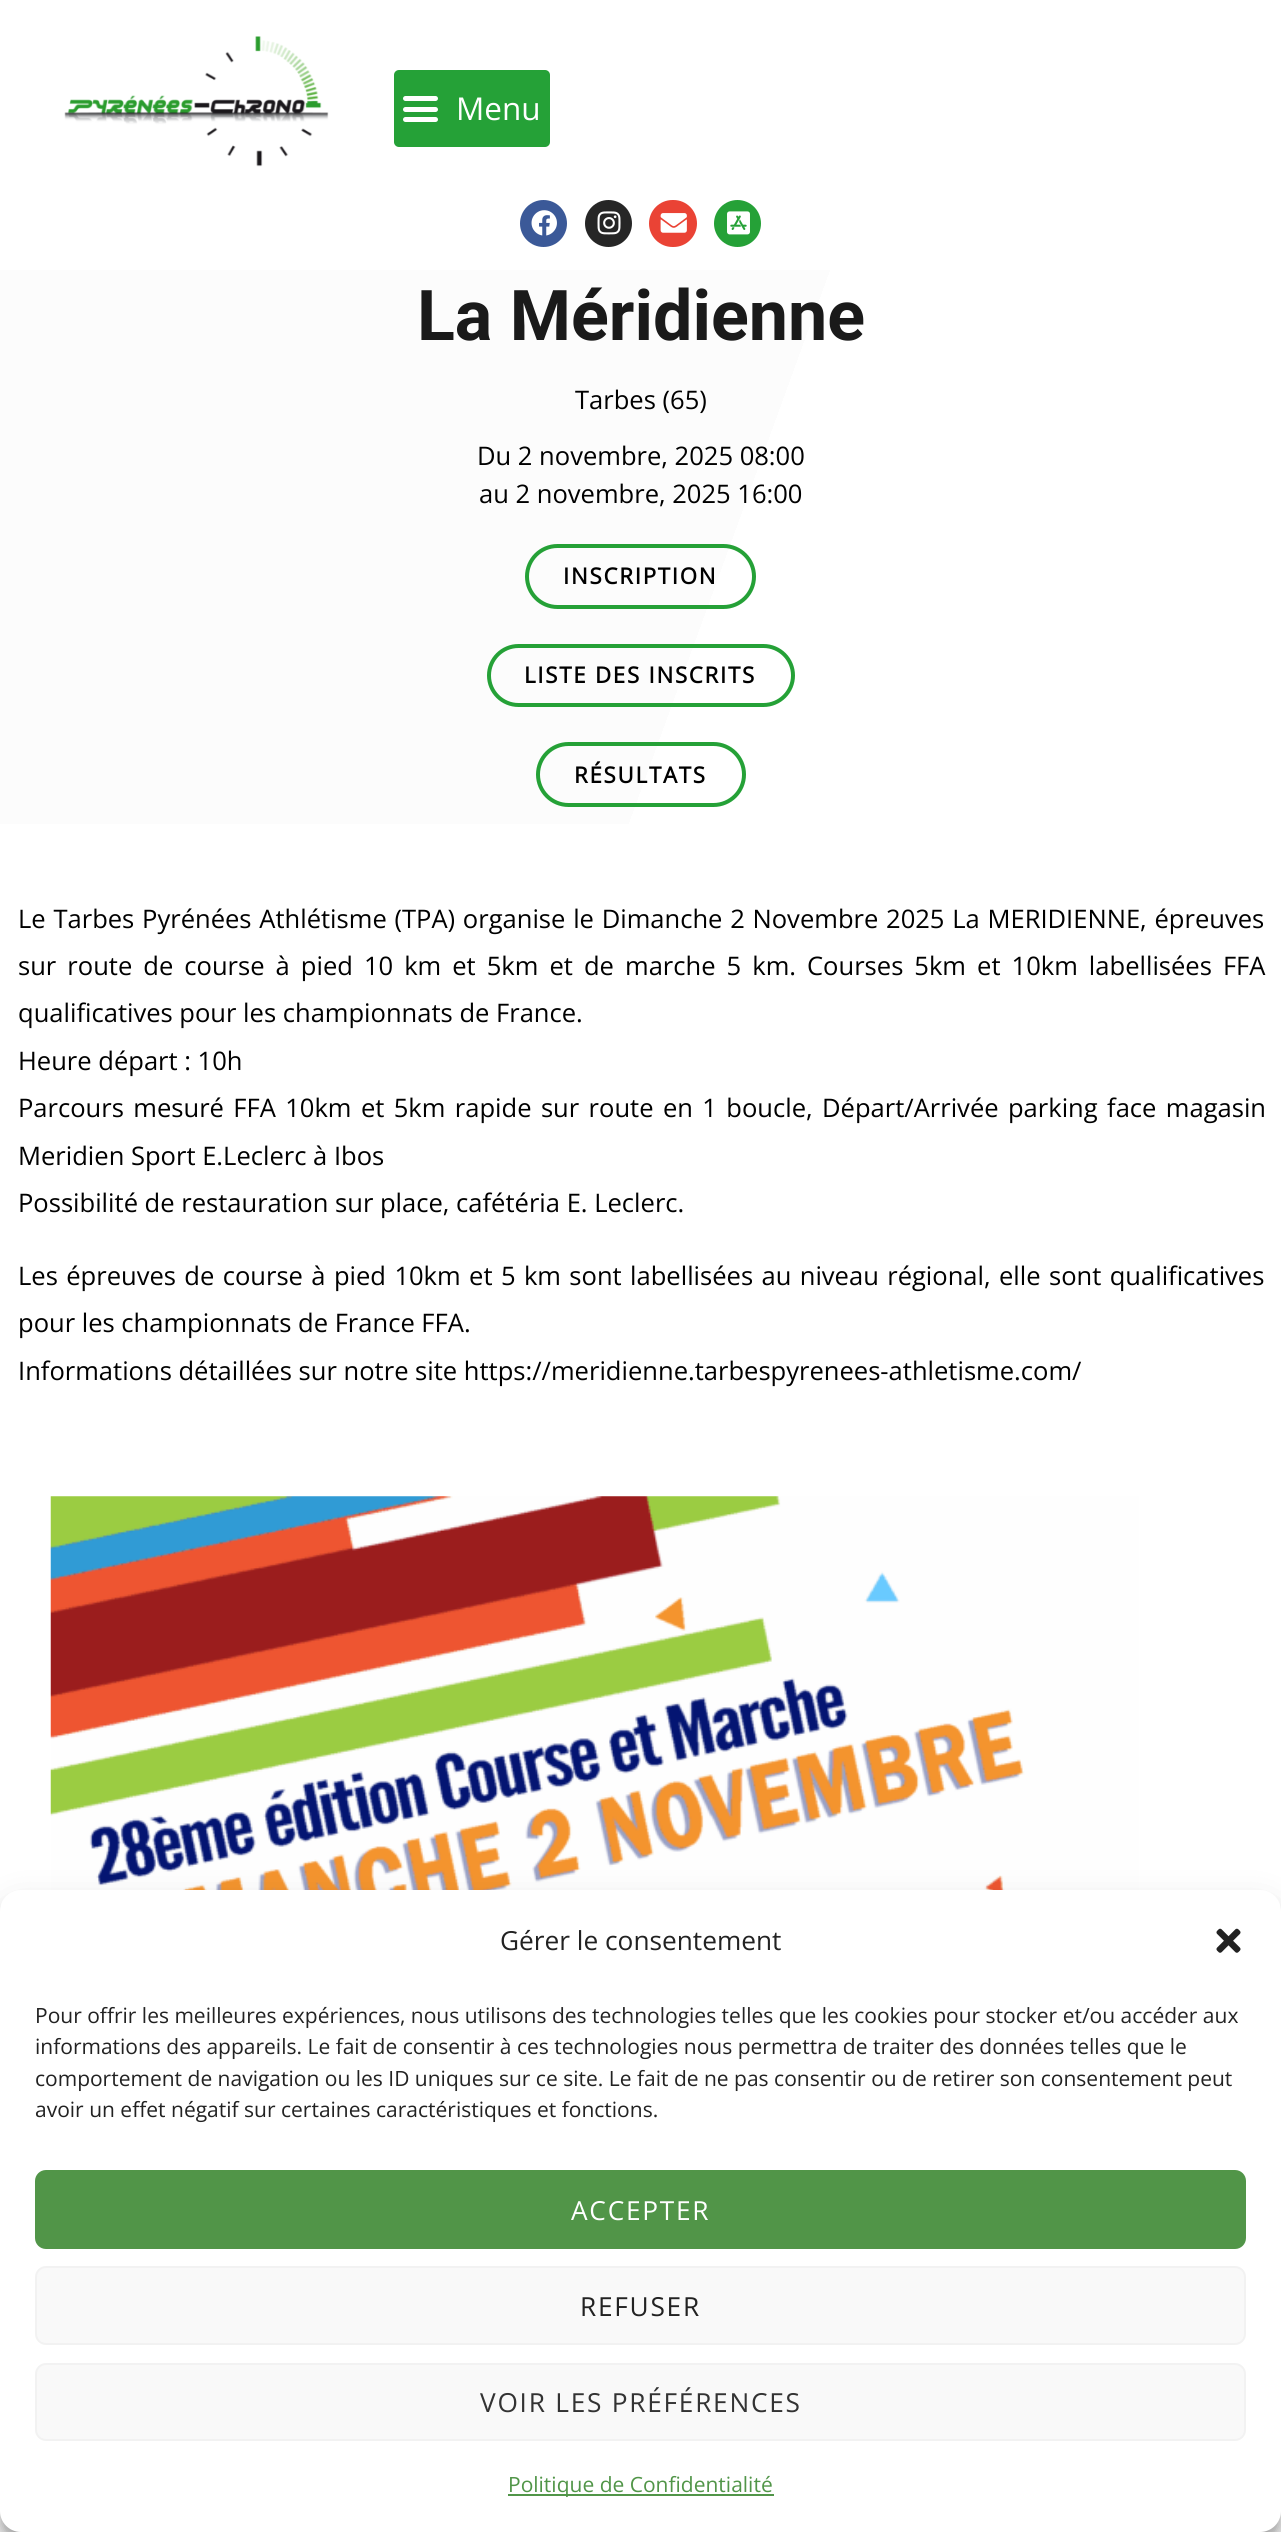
#include <cairo.h>
#include <math.h>
#include <stddef.h>

typedef struct { const char *family; double size; int italic, bold; unsigned color; } style_t;
static cairo_t *ctx;

static void ink(unsigned color) {
    cairo_set_source_rgb(ctx, (color >> 16) / 255.0, (color >> 8 & 255) / 255.0, (color & 255) / 255.0);
}

static void write(double x, double y, const char *s, const style_t *st) {
    cairo_select_font_face(ctx, st->family, st->italic ? CAIRO_FONT_SLANT_ITALIC : CAIRO_FONT_SLANT_NORMAL,
        st->bold ? CAIRO_FONT_WEIGHT_BOLD : CAIRO_FONT_WEIGHT_NORMAL);
    cairo_set_font_size(ctx, st->size);
    ink(st->color);
    cairo_move_to(ctx, x, y);
    cairo_show_text(ctx, s);
}

static void write_spaced(double x, double y, const char *s, double letter, double word) {
    cairo_move_to(ctx, x, y);
    while (*s) {
        char ch[5] = {0};
        int n = 0;
        do ch[n++] = *s++; while ((*s & 0xC0) == 0x80);
        cairo_show_text(ctx, ch);
        cairo_rel_move_to(ctx, letter + word * (*ch == ' '), 0);
    }
}

static void block(double x, double y, double w, double h, unsigned color) {
    ink(color);
    cairo_rectangle(ctx, x, y, w, h);
    cairo_fill(ctx);
}

static void round_path(double x, double y, double w, double h, double r) {
    cairo_new_sub_path(ctx);
    cairo_arc(ctx, x + w - r, y + h - r, r, 0, M_PI / 2);
    cairo_arc(ctx, x + r, y + h - r, r, M_PI / 2, M_PI);
    cairo_arc(ctx, x + r, y + r, r, M_PI, 1.5 * M_PI);
    cairo_arc(ctx, x + w - r, y + r, r, 1.5 * M_PI, 2 * M_PI);
    cairo_close_path(ctx);
}

static void blur_box(double x, double y, double w, double h, double r, double blur, double alpha) {
    cairo_push_group_with_content(ctx, CAIRO_CONTENT_ALPHA);
    cairo_set_operator(ctx, CAIRO_OPERATOR_SOURCE);
    for (int i = 15; i >= -15 && fmin(w, h) + blur * i / 3 > 0; i -= 2) {
        double e = blur * i / 6;
        cairo_set_source_rgba(ctx, 0, 0, 0, alpha * erfc((i - 1) / 8.5) / 2);
        round_path(x - e, y - e, w + 2 * e, h + 2 * e, fmax(0, fmin(r + e + blur * .6, fmin(w, h) / 2 + e)));
        cairo_fill(ctx);
    }
    cairo_pattern_t *soft = cairo_pop_group(ctx);
    cairo_mask(ctx, soft);
    cairo_pattern_destroy(soft);
}

static void paste(const char *path, double x, double y, double w, double h) {
    cairo_surface_t *image = cairo_image_surface_create_from_png(path);
    cairo_save(ctx);
    cairo_set_source_surface(ctx, image, x, y);
    cairo_rectangle(ctx, x, y, w, h);
    cairo_fill(ctx);
    cairo_restore(ctx);
    cairo_surface_destroy(image);
}

static const style_t s1 = {"Open Sans", 31.5, 0, 0, 0xffffff};
static const style_t s2 = {"Roboto", 70, 0, 1, 0x1a1a1a};
static const style_t s3 = {"Open Sans", 25.55, 0, 0, 0x000000};
static const style_t s4 = {"Open Sans", 26.25, 0, 0, 0x222222};
static const style_t s5 = {"Open Sans", 21, 0, 0, 0x222222};
static const style_t s6 = {"Open Sans", 21, 0, 0, 0x519548};

int main(void) {
    cairo_surface_t *surface = cairo_image_surface_create(CAIRO_FORMAT_RGB24, 1281, 2532);
    ctx = cairo_create(surface);
    cairo_font_options_t *options = cairo_font_options_create();
    cairo_font_options_set_hint_metrics(options, CAIRO_HINT_METRICS_OFF);
    cairo_font_options_set_hint_style(options, CAIRO_HINT_STYLE_NONE);
    cairo_set_font_options(ctx, options);
    cairo_set_miter_limit(ctx, 4);
    cairo_pattern_t *gradient;
    ink(0xffffff);
    cairo_paint(ctx);
    paste("pic1.png", 64, 36, 265, 131);
    ink(0x25a137);
    round_path(394, 70, 156, 77, 5);
    cairo_fill(ctx);
    ink(0xffffff);
    round_path(403, 107, 35, 5, 2.5);
    cairo_fill(ctx);
    round_path(403, 96, 35, 5, 2.5);
    cairo_fill(ctx);
    round_path(403, 117, 35, 5, 2.5);
    cairo_fill(ctx);
    write(456, 120, "Menu", &s1);
    ink(0x3b5998);
    cairo_new_path(ctx);
    cairo_arc(ctx, 543.5, 223.5, 23.5, 0, 2 * M_PI);
    cairo_fill(ctx);
    paste("pic2.png", 531, 210, 26, 26);
    ink(0x262626);
    cairo_arc(ctx, 608.5, 223.5, 23.5, 0, 2 * M_PI);
    cairo_fill(ctx);
    paste("pic3.png", 597, 211, 24, 24);
    ink(0xea4335);
    round_path(649, 200, 48, 47, 23.5);
    cairo_fill(ctx);
    paste("pic4.png", 660, 213, 27, 20);
    ink(0x25a137);
    cairo_arc(ctx, 737.5, 223.5, 23.5, 0, 2 * M_PI);
    cairo_fill(ctx);
    paste("pic5.png", 727, 211, 23, 24);
    gradient = cairo_pattern_create_linear(-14, 309, 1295, 785);
    cairo_pattern_add_color_stop_rgba(gradient, 0.56, 0.988, 0.988, 0.988, 1);
    cairo_pattern_add_color_stop_rgba(gradient, 0.56, 1, 1, 1, 1);
    cairo_set_source(ctx, gradient);
    cairo_pattern_destroy(gradient);
    cairo_rectangle(ctx, 0, 270, 830, 554);
    cairo_fill(ctx);
    write(417, 340, "La Méridienne", &s2);
    write(575, 409, "Tarbes (65)", &s3);
    write(477, 465, "Du 2 novembre, 2025 08:00", &s3);
    write(479, 503, "au 2 novembre, 2025 16:00", &s3);
    round_path(527, 546, 227, 61, 30.5);
    ink(0x25a137);
    cairo_set_line_width(ctx, 4);
    cairo_stroke(ctx);
    cairo_select_font_face(ctx, "Open Sans", CAIRO_FONT_SLANT_NORMAL, CAIRO_FONT_WEIGHT_BOLD);
    cairo_set_font_size(ctx, 22.25);
    ink(0x000000);
    write_spaced(563, 584, "INSCRIPTION", 1.75, 0);
    round_path(489, 646, 304, 59, 29.5);
    ink(0x25a137);
    cairo_stroke(ctx);
    ink(0x000000);
    write_spaced(524, 683, "LISTE DES INSCRITS", 1.75, 0);
    round_path(538, 744, 206, 61, 30.5);
    ink(0x25a137);
    cairo_stroke(ctx);
    ink(0x000000);
    write_spaced(574, 783, "RÉSULTATS", 1.75, 0);
    cairo_select_font_face(ctx, "Open Sans", CAIRO_FONT_SLANT_NORMAL, CAIRO_FONT_WEIGHT_NORMAL);
    cairo_set_font_size(ctx, 25.55);
    write_spaced(18, 928, "Le Tarbes Pyrénées Athlétisme (TPA) organise le Dimanche 2 Novembre 2025 La MERIDIENNE, épreuves", 0, 1.1);
    write_spaced(18, 975, "sur route de course à pied 10 km et 5km et de marche 5 km. Courses 5km et 10km labellisées FFA", 0, 4.4);
    write(18, 1022, "qualificatives pour les championnats de France.", &s3);
    write(18, 1070, "Heure départ : 10h", &s3);
    write_spaced(18, 1117, "Parcours mesuré FFA 10km et 5km rapide sur route en 1 boucle, Départ/Arrivée parking face magasin", 0, 2.75);
    write(18, 1165, "Meridien Sport E.Leclerc à Ibos", &s3);
    write(18, 1212, "Possibilité de restauration sur place, cafétéria E. Leclerc.", &s3);
    write_spaced(18, 1285, "Les épreuves de course à pied 10km et 5 km sont labellisées au niveau régional, elle sont qualificatives", 0, 1.75);
    write(18, 1332, "pour les championnats de France FFA.", &s3);
    write(18, 1380, "Informations détaillées sur notre site https://meridienne.tarbespyrenees-athletisme.com/", &s3);
    paste("pic6.png", 50, 1496, 1089, 394);
    ink(0x000000);
    blur_box(0, 1901, 1281, 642, 21, 5, 0.23);
    blur_box(0, 1908, 1281, 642, 21, 17.5, 0.19);
    ink(0xffffff);
    round_path(0, 1890, 1281, 642, 21);
    cairo_fill(ctx);
    write(500, 1950, "Gérer le consentement", &s4);
    paste("pic7.png", 1216, 1928, 25, 25);
    write(35, 2023, "Pour offrir les meilleures expériences, nous utilisons des technologies telles que les cookies pour stocker et/ou accéder aux", &s5);
    write(35, 2054, "informations des appareils. Le fait de consentir à ces technologies nous permettra de traiter des données telles que le", &s5);
    write(35, 2086, "comportement de navigation ou les ID uniques sur ce site. Le fait de ne pas consentir ou de retirer son consentement peut", &s5);
    write(35, 2117, "avoir un effet négatif sur certaines caractéristiques et fonctions.", &s5);
    ink(0x519548);
    round_path(36, 2171, 1209, 77, 10);
    cairo_fill_preserve(ctx);
    cairo_set_line_width(ctx, 2);
    cairo_stroke(ctx);
    cairo_set_font_size(ctx, 26.25);
    ink(0xffffff);
    write_spaced(571, 2220, "ACCEPTER", 1.75, 0);
    ink(0xf9f9f9);
    round_path(36, 2267, 1209, 77, 10);
    cairo_fill_preserve(ctx);
    ink(0xf2f2f2);
    cairo_stroke(ctx);
    ink(0x222222);
    write_spaced(580, 2316, "REFUSER", 1.75, 0);
    ink(0xf9f9f9);
    round_path(36, 2364, 1209, 76, 10);
    cairo_fill_preserve(ctx);
    ink(0xf2f2f2);
    cairo_stroke(ctx);
    ink(0x333333);
    write_spaced(480, 2412, "VOIR LES PRÉFÉRENCES", 1.75, 0);
    block(508, 2494, 266, 2, 0x519548);
    write(508, 2492, "Politique de Confidentialité", &s6);
    cairo_surface_write_to_png(surface, "screenshot.png");
    cairo_font_options_destroy(options);
    cairo_destroy(ctx);
    cairo_surface_destroy(surface);
    return 0;
}
